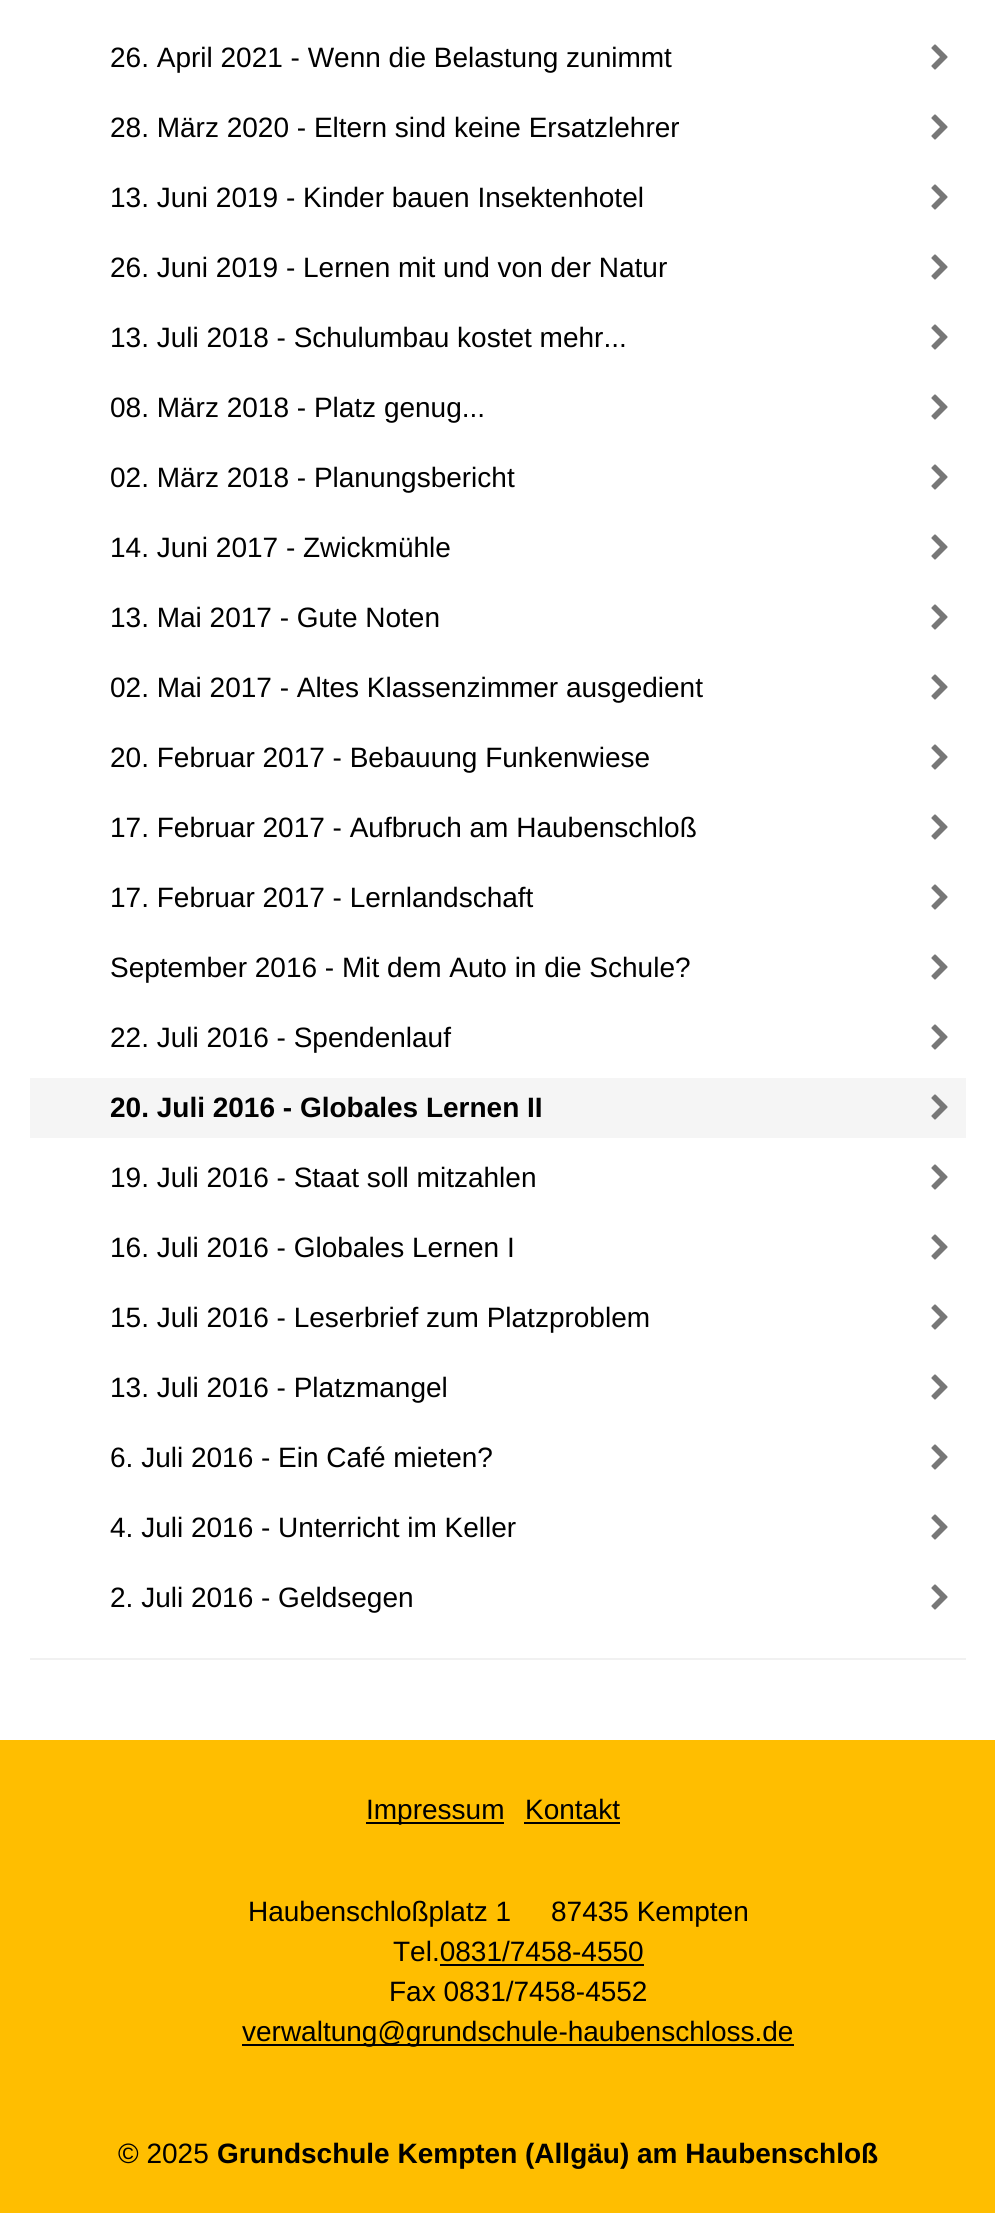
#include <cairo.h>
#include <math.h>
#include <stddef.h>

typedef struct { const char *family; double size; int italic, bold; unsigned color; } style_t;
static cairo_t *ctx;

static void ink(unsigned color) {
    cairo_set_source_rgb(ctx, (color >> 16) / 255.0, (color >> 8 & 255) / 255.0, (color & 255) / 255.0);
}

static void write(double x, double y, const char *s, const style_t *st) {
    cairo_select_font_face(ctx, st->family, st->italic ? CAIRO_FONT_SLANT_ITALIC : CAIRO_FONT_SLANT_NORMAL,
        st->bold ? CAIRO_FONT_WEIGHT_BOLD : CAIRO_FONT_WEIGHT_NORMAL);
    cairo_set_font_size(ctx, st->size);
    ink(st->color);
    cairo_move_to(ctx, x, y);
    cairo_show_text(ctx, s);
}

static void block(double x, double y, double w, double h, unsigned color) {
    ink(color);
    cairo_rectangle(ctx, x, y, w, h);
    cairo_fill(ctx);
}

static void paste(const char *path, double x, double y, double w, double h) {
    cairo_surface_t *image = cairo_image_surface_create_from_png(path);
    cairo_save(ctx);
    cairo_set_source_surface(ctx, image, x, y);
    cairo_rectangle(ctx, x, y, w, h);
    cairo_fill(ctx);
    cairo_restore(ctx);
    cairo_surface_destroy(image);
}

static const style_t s1 = {"Liberation Sans", 28, 0, 0, 0x000000};
static const style_t s2 = {"Liberation Sans", 28, 0, 1, 0x000000};

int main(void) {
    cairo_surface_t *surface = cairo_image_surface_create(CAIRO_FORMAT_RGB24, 995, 2213);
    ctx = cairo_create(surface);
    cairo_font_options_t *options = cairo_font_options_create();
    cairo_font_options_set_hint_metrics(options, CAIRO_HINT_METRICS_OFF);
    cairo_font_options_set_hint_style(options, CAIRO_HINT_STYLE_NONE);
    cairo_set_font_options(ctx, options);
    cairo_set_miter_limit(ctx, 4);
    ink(0xffffff);
    cairo_paint(ctx);
    block(30, 1658, 936, 2, 0xf1f1f1);
    write(110, 67, "26. April 2021 - Wenn die Belastung zunimmt", &s1);
    paste("pic1.png", 931, 44, 17, 26);
    write(110, 137, "28. März 2020 - Eltern sind keine Ersatzlehrer", &s1);
    paste("pic1.png", 931, 114, 17, 26);
    write(110, 207, "13. Juni 2019 - Kinder bauen Insektenhotel", &s1);
    paste("pic1.png", 931, 184, 17, 26);
    write(110, 277, "26. Juni 2019 - Lernen mit und von der Natur", &s1);
    paste("pic1.png", 931, 254, 17, 26);
    write(110, 347, "13. Juli 2018 - Schulumbau kostet mehr...", &s1);
    paste("pic1.png", 931, 324, 17, 26);
    write(110, 417, "08. März 2018 - Platz genug...", &s1);
    paste("pic1.png", 931, 394, 17, 26);
    write(110, 487, "02. März 2018 - Planungsbericht", &s1);
    paste("pic1.png", 931, 464, 17, 26);
    write(110, 557, "14. Juni 2017 - Zwickmühle", &s1);
    paste("pic1.png", 931, 534, 17, 26);
    write(110, 627, "13. Mai 2017 - Gute Noten", &s1);
    paste("pic1.png", 931, 604, 17, 26);
    write(110, 697, "02. Mai 2017 - Altes Klassenzimmer ausgedient", &s1);
    paste("pic1.png", 931, 674, 17, 26);
    write(110, 767, "20. Februar 2017 - Bebauung Funkenwiese", &s1);
    paste("pic1.png", 931, 744, 17, 26);
    write(110, 837, "17. Februar 2017 - Aufbruch am Haubenschloß", &s1);
    paste("pic1.png", 931, 814, 17, 26);
    write(110, 907, "17. Februar 2017 - Lernlandschaft", &s1);
    paste("pic1.png", 931, 884, 17, 26);
    write(110, 977, "September 2016 - Mit dem Auto in die Schule?", &s1);
    paste("pic1.png", 931, 954, 17, 26);
    write(110, 1047, "22. Juli 2016 - Spendenlauf", &s1);
    paste("pic1.png", 931, 1024, 17, 26);
    block(30, 1078, 936, 60, 0xf5f5f5);
    write(110, 1117, "20. Juli 2016 - Globales Lernen II", &s2);
    paste("pic2.png", 931, 1094, 17, 26);
    write(110, 1187, "19. Juli 2016 - Staat soll mitzahlen", &s1);
    paste("pic1.png", 931, 1164, 17, 26);
    write(110, 1257, "16. Juli 2016 - Globales Lernen I", &s1);
    paste("pic1.png", 931, 1234, 17, 26);
    write(110, 1327, "15. Juli 2016 - Leserbrief zum Platzproblem", &s1);
    paste("pic1.png", 931, 1304, 17, 26);
    write(110, 1397, "13. Juli 2016 - Platzmangel", &s1);
    paste("pic1.png", 931, 1374, 17, 26);
    write(110, 1467, "6. Juli 2016 - Ein Café mieten?", &s1);
    paste("pic1.png", 931, 1444, 17, 26);
    write(110, 1537, "4. Juli 2016 - Unterricht im Keller", &s1);
    paste("pic1.png", 931, 1514, 17, 26);
    write(110, 1607, "2. Juli 2016 - Geldsegen", &s1);
    paste("pic1.png", 931, 1584, 17, 26);
    block(0, 1740, 995, 473, 0xffbe00);
    block(366, 1822, 138, 2, 0x000000);
    write(366, 1819, "Impressum", &s1);
    write(525, 1819, "Kontakt", &s1);
    block(524, 1822, 96, 2, 0x000000);
    write(248, 1921, "Haubenschloßplatz 1", &s1);
    write(551, 1921, "87435 Kempten", &s1);
    write(393, 1961, "Tel.0831/7458-4550", &s1);
    block(440, 1964, 204, 2, 0x000000);
    write(389, 2001, "Fax 0831/7458-4552", &s1);
    block(242, 2044, 552, 2, 0x000000);
    write(242, 2041, "verwaltung@grundschule-haubenschloss.de", &s1);
    write(118, 2163, "© 2025", &s1);
    write(217, 2163, "Grundschule Kempten (Allgäu) am Haubenschloß", &s2);
    cairo_surface_write_to_png(surface, "screenshot.png");
    cairo_font_options_destroy(options);
    cairo_destroy(ctx);
    cairo_surface_destroy(surface);
    return 0;
}
